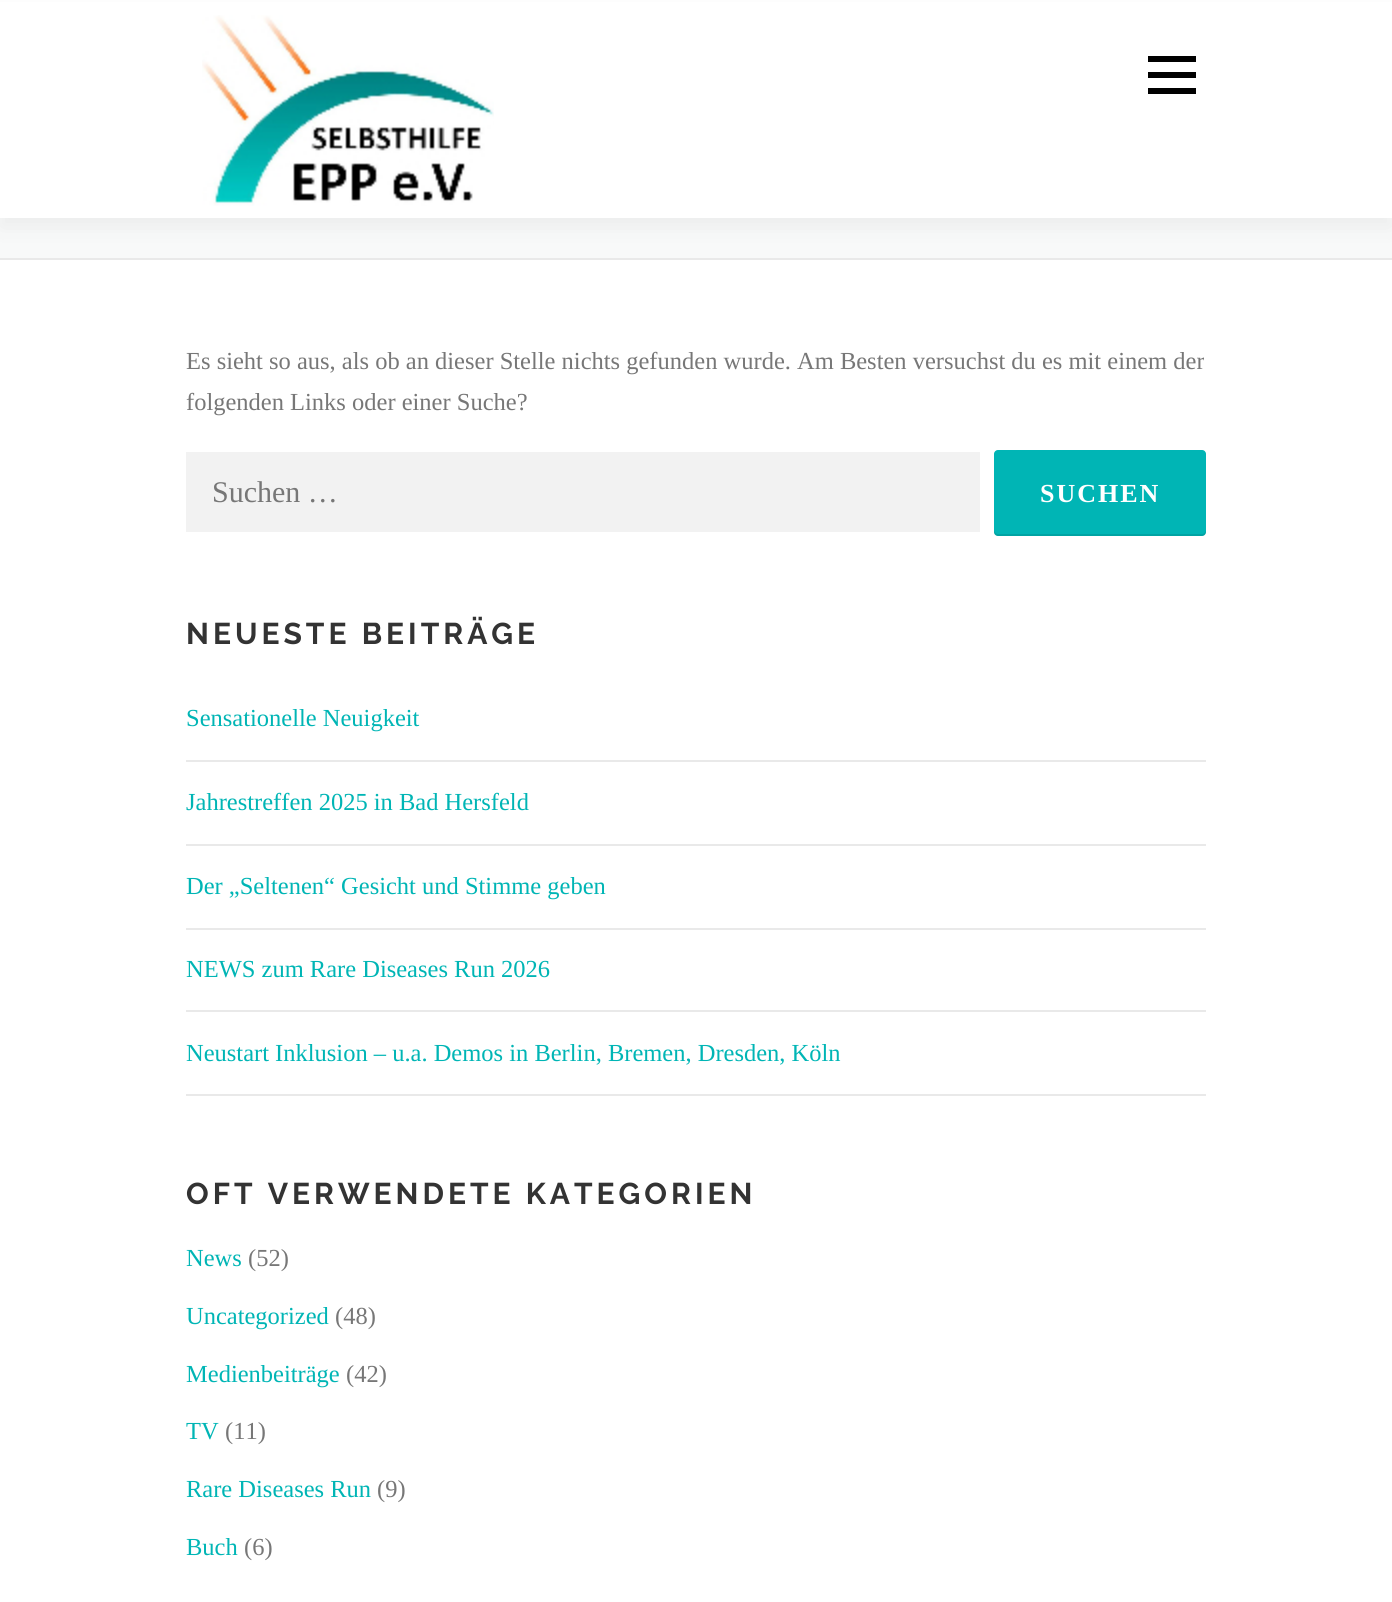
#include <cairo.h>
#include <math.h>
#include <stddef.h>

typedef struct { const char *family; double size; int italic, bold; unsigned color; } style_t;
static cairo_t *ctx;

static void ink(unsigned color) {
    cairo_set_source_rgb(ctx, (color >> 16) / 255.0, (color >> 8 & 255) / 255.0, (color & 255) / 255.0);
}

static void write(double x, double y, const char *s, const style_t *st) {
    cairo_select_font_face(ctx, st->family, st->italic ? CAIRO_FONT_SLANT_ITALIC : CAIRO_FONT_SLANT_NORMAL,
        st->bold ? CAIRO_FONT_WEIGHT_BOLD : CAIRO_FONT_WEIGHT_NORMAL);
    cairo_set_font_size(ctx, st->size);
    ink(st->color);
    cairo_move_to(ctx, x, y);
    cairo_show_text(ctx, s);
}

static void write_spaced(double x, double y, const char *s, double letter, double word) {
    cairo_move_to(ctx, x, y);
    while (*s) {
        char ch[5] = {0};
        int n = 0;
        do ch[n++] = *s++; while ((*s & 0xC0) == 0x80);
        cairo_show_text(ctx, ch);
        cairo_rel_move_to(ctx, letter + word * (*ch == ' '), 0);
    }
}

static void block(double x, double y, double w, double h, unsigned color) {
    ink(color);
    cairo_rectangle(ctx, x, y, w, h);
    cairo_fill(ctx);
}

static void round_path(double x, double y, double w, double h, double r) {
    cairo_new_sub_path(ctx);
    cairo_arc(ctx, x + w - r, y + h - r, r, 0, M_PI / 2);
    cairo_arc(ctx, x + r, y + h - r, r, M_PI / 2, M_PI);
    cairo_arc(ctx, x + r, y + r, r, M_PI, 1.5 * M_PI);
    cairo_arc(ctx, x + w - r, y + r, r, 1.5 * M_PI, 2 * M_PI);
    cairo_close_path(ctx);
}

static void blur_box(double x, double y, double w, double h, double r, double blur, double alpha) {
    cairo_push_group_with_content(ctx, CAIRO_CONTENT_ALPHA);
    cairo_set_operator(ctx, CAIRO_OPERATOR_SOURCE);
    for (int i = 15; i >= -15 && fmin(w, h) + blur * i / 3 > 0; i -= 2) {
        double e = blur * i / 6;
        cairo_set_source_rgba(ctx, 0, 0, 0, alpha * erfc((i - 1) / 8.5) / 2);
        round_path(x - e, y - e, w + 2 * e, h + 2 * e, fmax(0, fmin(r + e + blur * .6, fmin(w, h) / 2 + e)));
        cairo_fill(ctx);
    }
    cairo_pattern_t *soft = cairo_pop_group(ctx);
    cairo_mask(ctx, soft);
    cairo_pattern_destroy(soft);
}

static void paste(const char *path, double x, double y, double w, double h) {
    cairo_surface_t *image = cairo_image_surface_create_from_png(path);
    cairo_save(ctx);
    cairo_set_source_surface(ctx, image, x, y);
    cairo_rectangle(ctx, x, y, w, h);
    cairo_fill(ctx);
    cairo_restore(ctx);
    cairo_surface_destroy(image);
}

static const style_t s1 = {"Liberation Serif", 24.5, 0, 0, 0x777777};
static const style_t s2 = {"Liberation Serif", 30, 0, 0, 0x777777};
static const style_t s3 = {"Liberation Serif", 24.5, 0, 0, 0x00b5b5};

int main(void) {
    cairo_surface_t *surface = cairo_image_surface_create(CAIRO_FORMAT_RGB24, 1392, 1602);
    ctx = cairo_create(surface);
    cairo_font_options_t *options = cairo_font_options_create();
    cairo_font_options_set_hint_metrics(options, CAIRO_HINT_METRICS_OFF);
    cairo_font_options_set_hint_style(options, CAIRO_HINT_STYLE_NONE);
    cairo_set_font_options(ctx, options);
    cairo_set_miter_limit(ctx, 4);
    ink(0xffffff);
    cairo_paint(ctx);
    block(0, 218, 1392, 40, 0xf8f9f9);
    block(0, 258, 1392, 2, 0xe9e9e9);
    ink(0x323232);
    blur_box(0, 10, 1392, 218, 0, 10, 0.06);
    block(0, 2, 1392, 216, 0xffffff);
    paste("pic1.png", 202, 15, 292, 191);
    block(1148, 72, 48, 6, 0x000000);
    block(1148, 56, 48, 6, 0x000000);
    block(1148, 88, 48, 6, 0x000000);
    write(186, 369, "Es sieht so aus, als ob an dieser Stelle nichts gefunden wurde. Am Besten versuchst du es mit einem der", &s1);
    write(186, 410, "folgenden Links oder einer Suche?", &s1);
    block(186, 452, 794, 80, 0xf2f2f2);
    write(212, 502, "Suchen …", &s2);
    ink(0x00b5b5);
    round_path(994, 450, 212, 86, 4);
    cairo_fill(ctx);
    cairo_set_source_rgba(ctx, 0, 0, 0, 0.1);
    cairo_new_path(ctx);
    cairo_move_to(ctx, 994, 530);
    cairo_curve_to(ctx, 994, 533, 994, 535, 997, 536);
    cairo_line_to(ctx, 1203, 536);
    cairo_curve_to(ctx, 1206, 535, 1206, 533, 1206, 530);
    cairo_curve_to(ctx, 1206, 532, 1204, 534, 1202, 534);
    cairo_line_to(ctx, 998, 534);
    cairo_curve_to(ctx, 996, 534, 994, 532, 994, 530);
    cairo_close_path(ctx);
    cairo_fill(ctx);
    cairo_select_font_face(ctx, "Liberation Serif", CAIRO_FONT_SLANT_NORMAL, CAIRO_FONT_WEIGHT_BOLD);
    cairo_set_font_size(ctx, 26);
    ink(0xffffff);
    write_spaced(1040, 502, "SUCHEN", 2, 0);
    cairo_select_font_face(ctx, "Raleway", CAIRO_FONT_SLANT_NORMAL, CAIRO_FONT_WEIGHT_BOLD);
    cairo_set_font_size(ctx, 30);
    ink(0x333333);
    write_spaced(186, 644, "NEUESTE BEITRÄGE", 4, 0);
    block(186, 760, 1020, 2, 0xe9e9e9);
    write(186, 726, "Sensationelle Neuigkeit", &s3);
    block(186, 844, 1020, 2, 0xe9e9e9);
    write(186, 810, "Jahrestreffen 2025 in Bad Hersfeld", &s3);
    block(186, 928, 1020, 2, 0xe9e9e9);
    write(186, 894, "Der „Seltenen“ Gesicht und Stimme geben", &s3);
    block(186, 1010, 1020, 2, 0xe9e9e9);
    write(186, 977, "NEWS zum Rare Diseases Run 2026", &s3);
    block(186, 1094, 1020, 2, 0xe9e9e9);
    write(186, 1061, "Neustart Inklusion – u.a. Demos in Berlin, Bremen, Dresden, Köln", &s3);
    cairo_select_font_face(ctx, "Raleway", CAIRO_FONT_SLANT_NORMAL, CAIRO_FONT_WEIGHT_BOLD);
    cairo_set_font_size(ctx, 30);
    ink(0x333333);
    write_spaced(186, 1204, "OFT VERWENDETE KATEGORIEN", 4, 0);
    write(186, 1266, "News", &s3);
    write(248, 1266, "(52)", &s1);
    write(186, 1324, "Uncategorized", &s3);
    write(335, 1324, "(48)", &s1);
    write(186, 1382, "Medienbeiträge", &s3);
    write(346, 1382, "(42)", &s1);
    write(186, 1439, "TV", &s3);
    write(225, 1439, "(11)", &s1);
    write(186, 1497, "Rare Diseases Run", &s3);
    write(377, 1497, "(9)", &s1);
    write(186, 1555, "Buch", &s3);
    write(244, 1555, "(6)", &s1);
    cairo_surface_write_to_png(surface, "screenshot.png");
    cairo_font_options_destroy(options);
    cairo_destroy(ctx);
    cairo_surface_destroy(surface);
    return 0;
}
